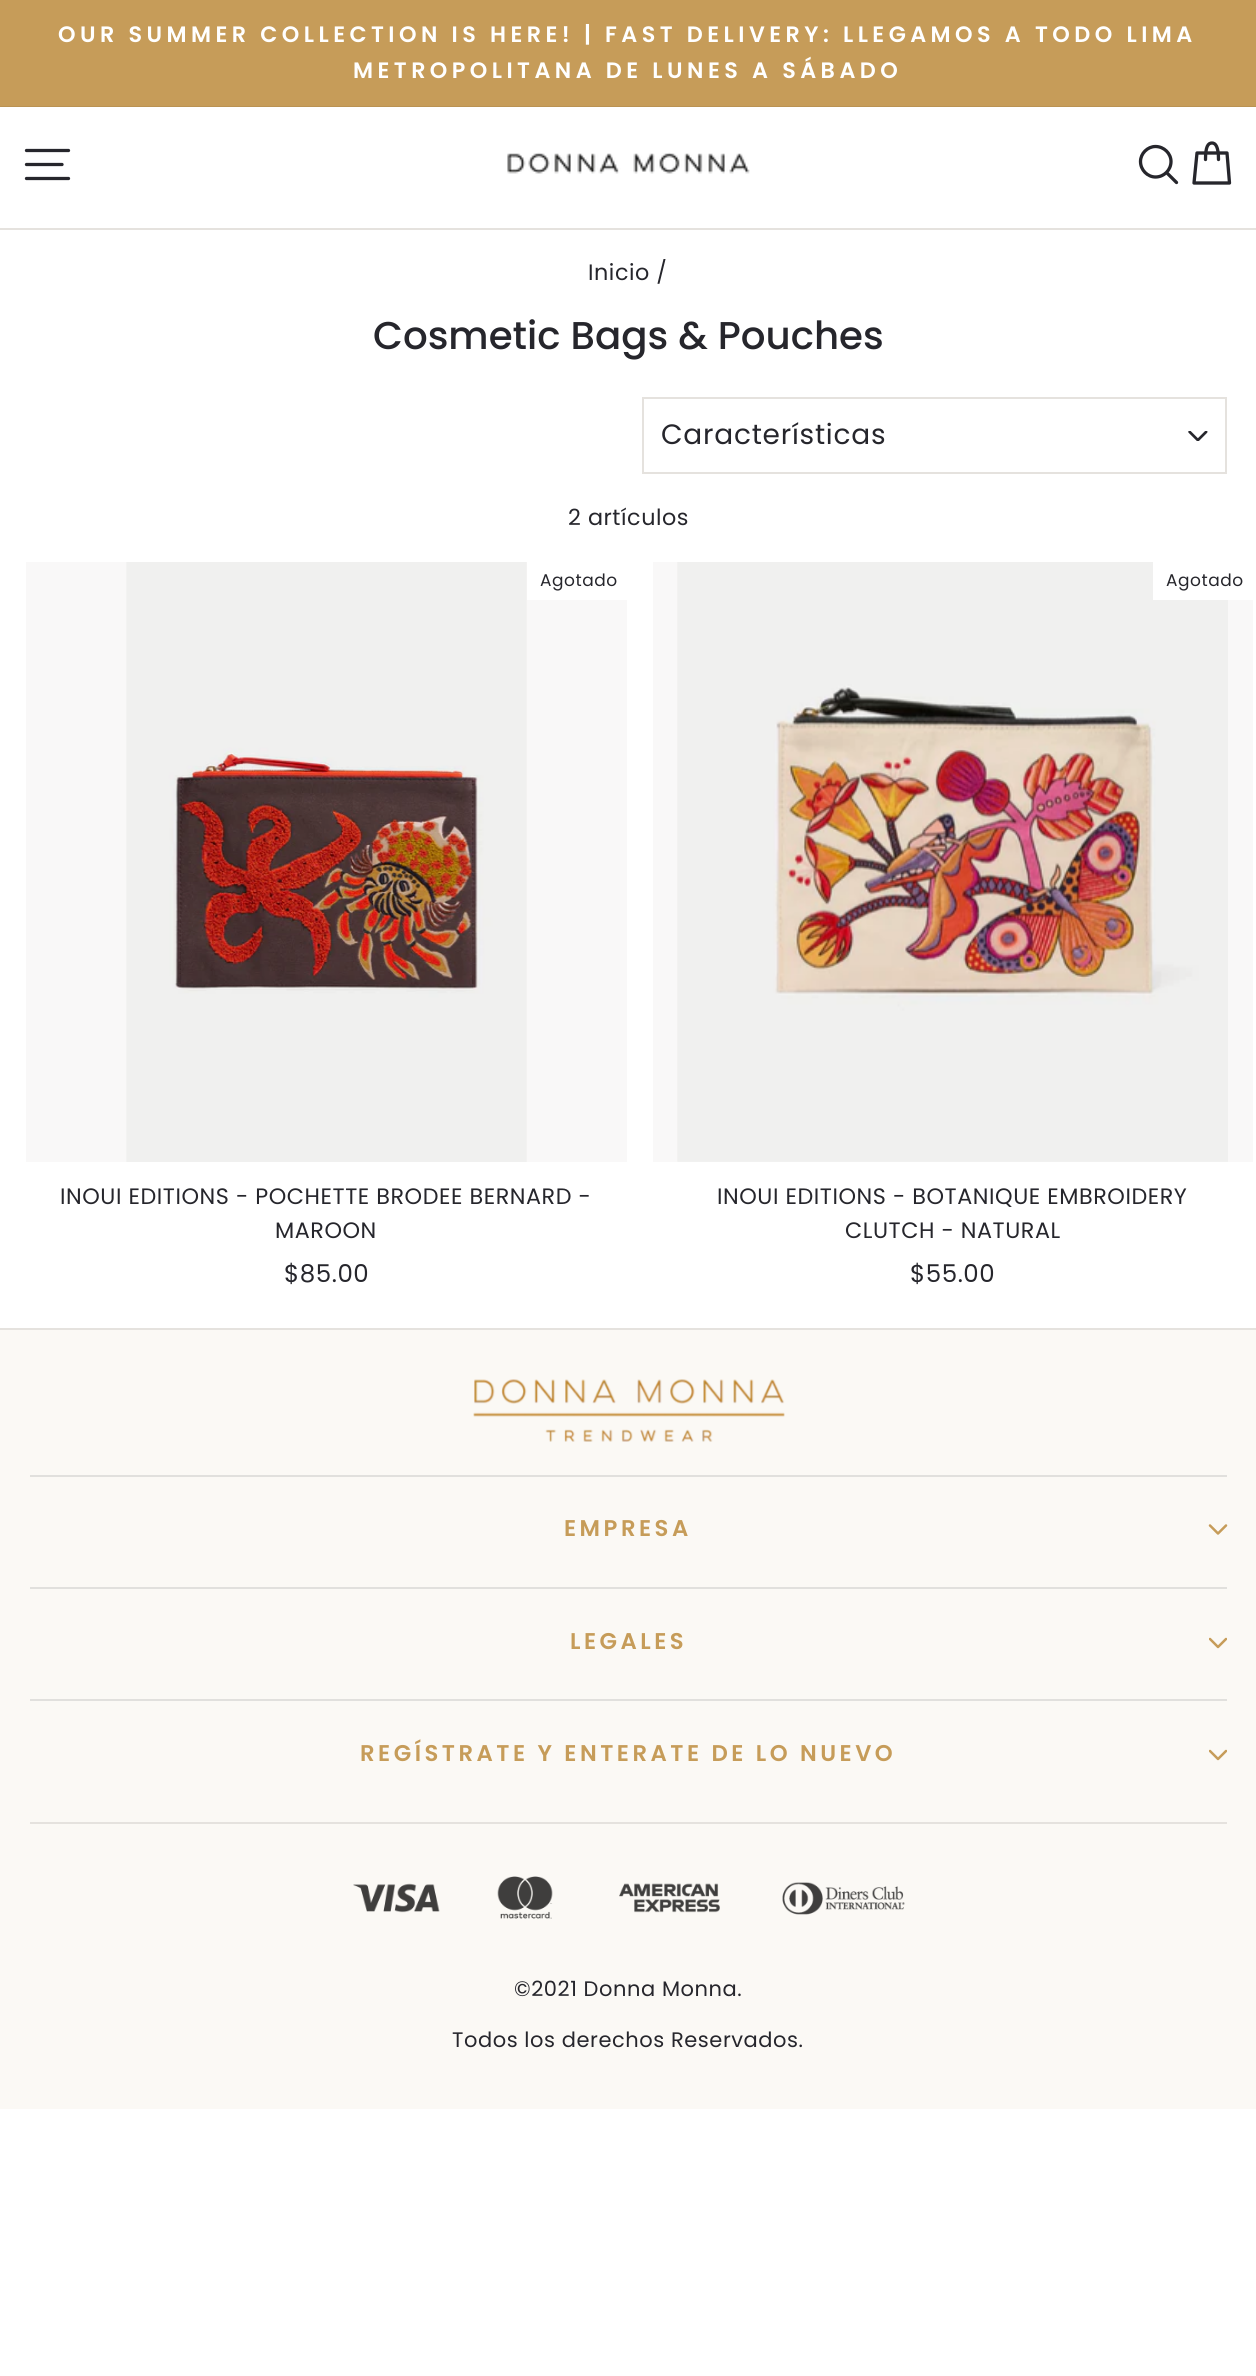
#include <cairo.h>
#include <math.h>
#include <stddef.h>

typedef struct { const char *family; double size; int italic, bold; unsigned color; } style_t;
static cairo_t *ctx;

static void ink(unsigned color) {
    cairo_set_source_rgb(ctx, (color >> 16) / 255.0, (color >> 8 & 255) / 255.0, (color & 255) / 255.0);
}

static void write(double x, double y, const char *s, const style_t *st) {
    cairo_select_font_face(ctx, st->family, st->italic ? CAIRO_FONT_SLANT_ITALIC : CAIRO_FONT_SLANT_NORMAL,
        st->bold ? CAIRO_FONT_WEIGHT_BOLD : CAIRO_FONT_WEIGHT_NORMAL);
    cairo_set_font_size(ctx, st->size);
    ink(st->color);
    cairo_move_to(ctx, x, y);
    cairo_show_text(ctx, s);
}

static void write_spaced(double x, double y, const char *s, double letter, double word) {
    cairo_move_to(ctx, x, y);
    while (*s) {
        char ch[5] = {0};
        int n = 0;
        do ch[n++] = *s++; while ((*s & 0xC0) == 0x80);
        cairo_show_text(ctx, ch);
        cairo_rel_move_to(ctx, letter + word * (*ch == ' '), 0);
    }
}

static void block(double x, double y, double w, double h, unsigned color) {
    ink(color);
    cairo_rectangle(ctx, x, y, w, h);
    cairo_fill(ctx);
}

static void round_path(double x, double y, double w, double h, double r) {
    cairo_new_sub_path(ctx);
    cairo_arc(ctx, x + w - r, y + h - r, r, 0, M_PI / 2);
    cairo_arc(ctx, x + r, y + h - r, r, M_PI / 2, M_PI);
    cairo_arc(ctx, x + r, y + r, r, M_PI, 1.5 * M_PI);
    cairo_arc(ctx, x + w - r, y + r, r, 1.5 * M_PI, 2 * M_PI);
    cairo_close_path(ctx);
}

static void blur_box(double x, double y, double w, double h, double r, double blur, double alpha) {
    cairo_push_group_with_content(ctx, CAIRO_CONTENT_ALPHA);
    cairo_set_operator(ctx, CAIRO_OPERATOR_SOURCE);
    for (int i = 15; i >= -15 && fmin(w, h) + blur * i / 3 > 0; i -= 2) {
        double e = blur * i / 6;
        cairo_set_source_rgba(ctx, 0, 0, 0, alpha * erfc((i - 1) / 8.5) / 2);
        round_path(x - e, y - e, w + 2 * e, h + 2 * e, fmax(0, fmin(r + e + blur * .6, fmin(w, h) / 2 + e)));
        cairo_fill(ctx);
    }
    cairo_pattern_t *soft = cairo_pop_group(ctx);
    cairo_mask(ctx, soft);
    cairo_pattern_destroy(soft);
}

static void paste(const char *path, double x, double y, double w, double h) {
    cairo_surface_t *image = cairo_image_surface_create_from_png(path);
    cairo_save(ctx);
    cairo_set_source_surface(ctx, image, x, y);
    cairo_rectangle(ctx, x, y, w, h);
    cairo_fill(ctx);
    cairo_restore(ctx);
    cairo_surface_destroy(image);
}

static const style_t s1 = {"Poppins Medium", 38.75, 0, 0, 0x26262c};

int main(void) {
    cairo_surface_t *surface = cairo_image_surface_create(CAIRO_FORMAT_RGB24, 1256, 2376);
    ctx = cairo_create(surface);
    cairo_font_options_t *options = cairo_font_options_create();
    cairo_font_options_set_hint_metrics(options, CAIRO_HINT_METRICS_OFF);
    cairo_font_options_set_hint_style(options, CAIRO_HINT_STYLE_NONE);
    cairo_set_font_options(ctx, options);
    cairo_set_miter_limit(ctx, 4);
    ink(0xffffff);
    cairo_paint(ctx);
    block(653, 562, 600, 600, 0xf9f8f8);
    block(26, 562, 601, 600, 0xf9f8f8);
    block(0, 0, 1256, 107, 0xc69c59);
    cairo_select_font_face(ctx, "Poppins SemiBold", CAIRO_FONT_SLANT_NORMAL, CAIRO_FONT_WEIGHT_NORMAL);
    cairo_set_font_size(ctx, 22.3);
    ink(0xffffff);
    write_spaced(58, 42, "OUR SUMMER COLLECTION IS HERE! | FAST DELIVERY: LLEGAMOS A TODO LIMA", 4.45, 0);
    write_spaced(353, 78, "METROPOLITANA DE LUNES A SÁBADO", 4.45, 0);
    cairo_save(ctx);
    cairo_rectangle(ctx, 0, 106, 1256, 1);
    cairo_clip(ctx);
    ink(0x000000);
    blur_box(0, 107, 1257, 122, 0, 1, 0.2);
    cairo_restore(ctx);
    block(0, 228, 1256, 2, 0xe5e2de);
    cairo_new_path(ctx);
    cairo_move_to(ctx, 26.5, 150.5);
    cairo_line_to(ctx, 68.5, 150.5);
    cairo_move_to(ctx, 26.5, 164.5);
    cairo_line_to(ctx, 62, 164.5);
    cairo_move_to(ctx, 26.5, 178.5);
    cairo_line_to(ctx, 68.5, 178.5);
    ink(0x26262c);
    cairo_set_line_width(ctx, 3.3);
    cairo_set_line_cap(ctx, CAIRO_LINE_CAP_ROUND);
    cairo_set_line_join(ctx, CAIRO_LINE_JOIN_ROUND);
    cairo_stroke(ctx);
    paste("pic1.png", 507, 152, 243, 22);
    cairo_new_path(ctx);
    cairo_move_to(ctx, 1171, 161.5);
    cairo_curve_to(ctx, 1171, 170, 1164, 177, 1155.5, 177);
    cairo_curve_to(ctx, 1147.5, 177, 1140.5, 170, 1140.5, 161.5);
    cairo_curve_to(ctx, 1140.5, 153.5, 1147.5, 146.5, 1155.5, 146.5);
    cairo_curve_to(ctx, 1164, 146.5, 1171, 153.5, 1171, 161.5);
    cairo_close_path(ctx);
    cairo_move_to(ctx, 1176.5, 182.5);
    cairo_line_to(ctx, 1166.5, 172.5);
    cairo_stroke(ctx);
    cairo_new_path(ctx);
    cairo_move_to(ctx, 1205.5, 159.5);
    cairo_curve_to(ctx, 1205.5, 146.5, 1208, 143, 1212, 143);
    cairo_curve_to(ctx, 1215.5, 143, 1218.5, 146.5, 1218.5, 159.5);
    cairo_move_to(ctx, 1197, 153);
    cairo_line_to(ctx, 1227, 153);
    cairo_line_to(ctx, 1229.5, 183);
    cairo_line_to(ctx, 1194, 183);
    cairo_close_path(ctx);
    cairo_stroke(ctx);
    cairo_select_font_face(ctx, "Poppins", CAIRO_FONT_SLANT_NORMAL, CAIRO_FONT_WEIGHT_NORMAL);
    write_spaced(588, 280, "Inicio /", 0.55, 0);
    write(373, 349, "Cosmetic Bags & Pouches", &s1);
    paste("pic2.png", 1188, 431, 20, 10);
    cairo_rectangle(ctx, 643, 398, 583, 75);
    ink(0xe5e2de);
    cairo_set_line_width(ctx, 2);
    cairo_set_line_cap(ctx, CAIRO_LINE_CAP_BUTT);
    cairo_set_line_join(ctx, CAIRO_LINE_JOIN_MITER);
    cairo_stroke(ctx);
    cairo_save(ctx);
    cairo_rectangle(ctx, 662, 413, 514, 46);
    cairo_clip(ctx);
    cairo_select_font_face(ctx, "Poppins", CAIRO_FONT_SLANT_NORMAL, CAIRO_FONT_WEIGHT_NORMAL);
    cairo_set_font_size(ctx, 28);
    ink(0x26262c);
    write_spaced(661, 444, "Características", 0.75, 0);
    cairo_restore(ctx);
    cairo_select_font_face(ctx, "Poppins", CAIRO_FONT_SLANT_NORMAL, CAIRO_FONT_WEIGHT_NORMAL);
    cairo_set_font_size(ctx, 22.3);
    ink(0x26262c);
    write_spaced(568, 525, "2 artículos", 0.55, 0);
    block(527, 562, 100, 38, 0xffffff);
    cairo_set_font_size(ctx, 17);
    ink(0x26262c);
    write_spaced(540, 586, "Agotado", 0.55, 0);
    paste("pic3.png", 126, 562, 401, 600);
    cairo_set_font_size(ctx, 22.3);
    write_spaced(60, 1204, "INOUI EDITIONS - POCHETTE BRODEE BERNARD -", 0.55, 0);
    write_spaced(275, 1238, "MAROON", 0.55, 0);
    cairo_set_font_size(ctx, 24.5);
    write_spaced(284, 1282, "$85.00", 0.55, 0);
    paste("pic4.png", 677, 562, 551, 600);
    block(1153, 562, 100, 38, 0xffffff);
    cairo_set_font_size(ctx, 17);
    ink(0x26262c);
    write_spaced(1166, 586, "Agotado", 0.55, 0);
    cairo_set_font_size(ctx, 22.3);
    write_spaced(717, 1204, "INOUI EDITIONS - BOTANIQUE EMBROIDERY", 0.55, 0);
    write_spaced(845, 1238, "CLUTCH - NATURAL", 0.55, 0);
    cairo_set_font_size(ctx, 24.5);
    write_spaced(910, 1282, "$55.00", 0.55, 0);
    block(0, 1330, 1256, 779, 0xfbf9f5);
    block(0, 1328, 1256, 2, 0xe5e2de);
    paste("pic5.png", 473, 1379, 312, 63);
    block(30, 1475, 1197, 2, 0xe1e0dd);
    cairo_select_font_face(ctx, "Poppins SemiBold", CAIRO_FONT_SLANT_NORMAL, CAIRO_FONT_WEIGHT_NORMAL);
    cairo_set_font_size(ctx, 22.75);
    ink(0xc69c59);
    write_spaced(564, 1536, "EMPRESA", 3.5, 0);
    cairo_new_path(ctx);
    cairo_move_to(ctx, 1210, 1525.5);
    cairo_line_to(ctx, 1218, 1533.5);
    cairo_line_to(ctx, 1226, 1525.5);
    cairo_set_line_width(ctx, 2.5);
    cairo_set_line_cap(ctx, CAIRO_LINE_CAP_ROUND);
    cairo_set_line_join(ctx, CAIRO_LINE_JOIN_ROUND);
    cairo_stroke(ctx);
    block(30, 1587, 1197, 2, 0xe1e0dd);
    ink(0xc69c59);
    write_spaced(570, 1649, "LEGALES", 3.5, 0);
    cairo_save(ctx);
    cairo_rectangle(ctx, 1209, 1635, 18, 17);
    cairo_clip(ctx);
    cairo_new_path(ctx);
    cairo_move_to(ctx, 1210, 1639);
    cairo_line_to(ctx, 1218, 1647);
    cairo_line_to(ctx, 1226, 1639);
    cairo_stroke(ctx);
    cairo_restore(ctx);
    block(30, 1699, 1197, 2, 0xe1e0dd);
    ink(0xc69c59);
    write_spaced(360, 1761, "REGÍSTRATE Y ENTERATE DE LO NUEVO", 3.5, 0);
    cairo_save(ctx);
    cairo_rectangle(ctx, 1209, 1747, 18, 17);
    cairo_clip(ctx);
    cairo_new_path(ctx);
    cairo_move_to(ctx, 1210, 1751);
    cairo_line_to(ctx, 1218, 1759);
    cairo_line_to(ctx, 1226, 1751);
    cairo_stroke(ctx);
    cairo_restore(ctx);
    block(30, 1822, 1197, 2, 0xe5e2de);
    paste("pic6.png", 353, 1883, 87, 30);
    paste("pic7.png", 497, 1876, 56, 43);
    paste("pic8.png", 619, 1883, 101, 30);
    paste("pic9.png", 782, 1882, 123, 33);
    cairo_select_font_face(ctx, "Poppins", CAIRO_FONT_SLANT_NORMAL, CAIRO_FONT_WEIGHT_NORMAL);
    cairo_set_font_size(ctx, 21);
    ink(0x26262c);
    write_spaced(514, 1996, "©2021 Donna Monna.", 0.55, 0);
    write_spaced(452, 2047, "Todos los derechos Reservados.", 0.55, 0);
    cairo_surface_write_to_png(surface, "screenshot.png");
    cairo_font_options_destroy(options);
    cairo_destroy(ctx);
    cairo_surface_destroy(surface);
    return 0;
}
